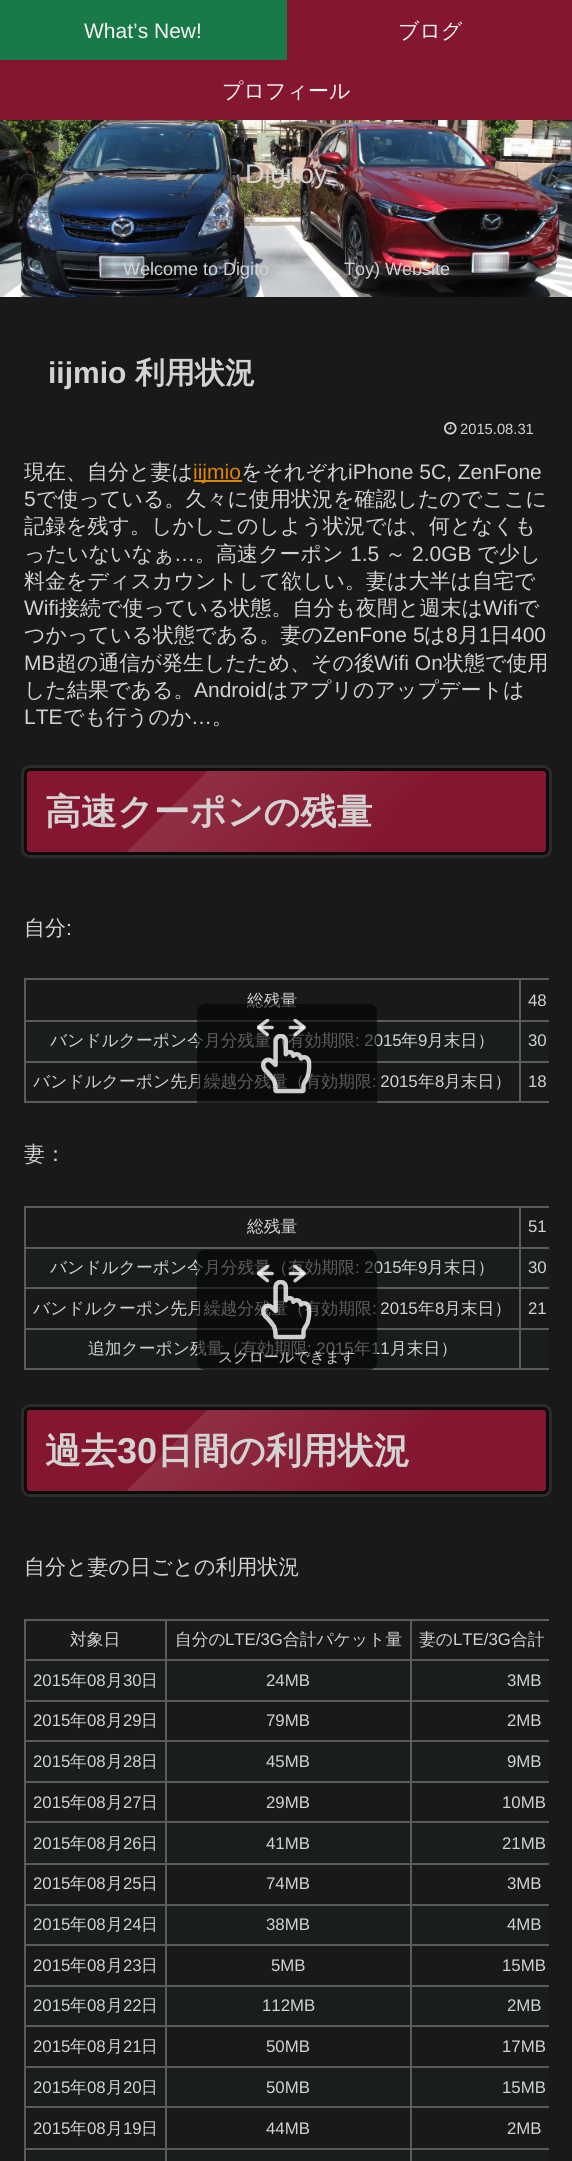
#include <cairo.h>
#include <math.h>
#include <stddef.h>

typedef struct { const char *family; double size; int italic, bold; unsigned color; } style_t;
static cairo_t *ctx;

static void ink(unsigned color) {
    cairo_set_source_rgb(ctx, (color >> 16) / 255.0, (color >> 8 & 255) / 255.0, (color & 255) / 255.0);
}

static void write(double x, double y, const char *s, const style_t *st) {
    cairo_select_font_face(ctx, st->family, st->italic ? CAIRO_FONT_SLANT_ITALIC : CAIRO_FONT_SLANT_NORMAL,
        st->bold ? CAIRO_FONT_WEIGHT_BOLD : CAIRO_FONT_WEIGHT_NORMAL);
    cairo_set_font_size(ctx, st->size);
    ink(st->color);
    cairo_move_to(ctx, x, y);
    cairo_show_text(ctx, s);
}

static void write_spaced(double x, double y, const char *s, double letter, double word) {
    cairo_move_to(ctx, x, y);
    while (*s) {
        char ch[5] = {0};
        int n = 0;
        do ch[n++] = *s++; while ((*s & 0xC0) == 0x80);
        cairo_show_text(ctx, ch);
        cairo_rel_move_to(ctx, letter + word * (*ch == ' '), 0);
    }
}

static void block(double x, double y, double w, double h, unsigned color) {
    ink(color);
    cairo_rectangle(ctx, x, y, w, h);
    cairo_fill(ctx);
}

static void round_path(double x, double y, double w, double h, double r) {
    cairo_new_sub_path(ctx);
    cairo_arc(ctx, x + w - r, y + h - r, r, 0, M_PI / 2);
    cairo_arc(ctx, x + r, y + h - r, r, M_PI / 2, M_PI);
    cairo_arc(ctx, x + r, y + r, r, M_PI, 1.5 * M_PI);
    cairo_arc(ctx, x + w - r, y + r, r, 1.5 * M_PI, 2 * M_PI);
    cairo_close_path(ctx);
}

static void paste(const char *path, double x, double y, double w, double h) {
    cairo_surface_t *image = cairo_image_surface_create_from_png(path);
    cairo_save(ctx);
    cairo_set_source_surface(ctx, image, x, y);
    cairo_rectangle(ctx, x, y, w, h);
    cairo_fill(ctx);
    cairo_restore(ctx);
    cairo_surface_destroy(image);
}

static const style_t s1 = {"Liberation Sans", 21, 0, 0, 0xf6f6f6};
static const style_t s2 = {"WenQuanYi Zen Hei Medium", 21, 0, 0, 0xf6f6f6};
static const style_t s3 = {"Liberation Sans", 27, 0, 0, 0xd3d3d3};
static const style_t s4 = {"Liberation Sans", 18, 0, 0, 0xd3d3d3};
static const style_t s5 = {"Liberation Sans", 30, 0, 1, 0xd3d3d3};
static const style_t s6 = {"WenQuanYi Zen Hei", 30, 0, 1, 0xd3d3d3};
static const style_t s7 = {"Liberation Sans", 14.75, 0, 0, 0xd3d3d3};
static const style_t s8 = {"WenQuanYi Zen Hei Medium", 21, 0, 0, 0xd3d3d3};
static const style_t s9 = {"Liberation Sans", 21, 0, 0, 0xdd8500};
static const style_t s10 = {"Liberation Sans", 21, 0, 0, 0xd3d3d3};
static const style_t s11 = {"WenQuanYi Zen Hei", 36, 0, 1, 0xd3d3d3};
static const style_t s12 = {"WenQuanYi Zen Hei Medium", 16.8, 0, 0, 0xd3d3d3};
static const style_t s13 = {"Liberation Sans", 16.8, 0, 0, 0xd3d3d3};
static const style_t s14 = {"WenQuanYi Zen Hei Medium", 15, 0, 0, 0xd3d3d3};
static const style_t s15 = {"Liberation Sans", 36, 0, 1, 0xd3d3d3};

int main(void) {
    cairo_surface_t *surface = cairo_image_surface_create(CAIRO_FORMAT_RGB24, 572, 2161);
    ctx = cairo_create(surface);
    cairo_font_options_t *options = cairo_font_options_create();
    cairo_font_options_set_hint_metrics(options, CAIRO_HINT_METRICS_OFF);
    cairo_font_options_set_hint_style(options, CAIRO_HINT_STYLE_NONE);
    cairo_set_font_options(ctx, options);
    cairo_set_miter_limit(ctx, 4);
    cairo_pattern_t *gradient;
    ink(0x191919);
    cairo_paint(ctx);
    block(0, 0, 572, 120, 0x84172f);
    block(0, 0, 287, 60, 0x1a7949);
    write(84, 38, "What’s New!", &s1);
    write(398, 38, "ブログ", &s2);
    write(222, 98, "プロフィール", &s2);
    paste("pic1.png", 0, 120, 572, 177);
    write(245, 183, "Digitoy", &s3);
    write(123, 275, "Welcome to Digito", &s4);
    write(344, 275, "Toy) Website", &s4);
    write(48, 383, "iijmio", &s5);
    write(135, 383, "利用状況", &s6);
    paste("pic2.png", 444, 422, 13, 13);
    write(460, 434, "2015.08.31", &s7);
    write(24, 479, "現在、自分と妻は", &s8);
    block(194, 480, 48, 2, 0xdd8500);
    write(193, 479, "iijmio", &s9);
    write(241, 479, "をそれぞれ", &s8);
    write(348, 479, "iPhone 5C, ZenFone", &s10);
    write(24, 506, "5", &s10);
    write(36, 506, "で使っている。久々に使用状況を確認したのでここに", &s8);
    write(24, 533, "記録を残す。しかしこのしよう状況では、何となくも", &s8);
    write(24, 561, "ったいないなぁ", &s8);
    write(195, 561, "。高速クーポン", &s8);
    write(350, 561, "1.5", &s10);
    write(385, 561, "～", &s8);
    write(412, 561, "2.0GB", &s10);
    write(477, 561, "で少し", &s8);
    write(174, 561, "…", &s10);
    write(24, 588, "料金をディスカウントして欲しい。妻は大半は自宅で", &s8);
    write(24, 615, "Wifi", &s10);
    write(59, 615, "接続で使っている状態。自分も夜間と週末は", &s8);
    write(483, 615, "Wifi", &s10);
    write(518, 615, "で", &s8);
    write(24, 642, "つかっている状態である。妻の", &s8);
    write(323, 642, "ZenFone 5", &s10);
    write(424, 642, "は", &s8);
    write(446, 642, "8", &s10);
    write(458, 642, "月", &s8);
    write(479, 642, "1", &s10);
    write(490, 642, "日", &s8);
    write(511, 642, "400", &s10);
    write(24, 670, "MB", &s10);
    write(56, 670, "超の通信が発生したため、その後", &s8);
    write(374, 670, "Wifi On", &s10);
    write(443, 670, "状態で使用", &s8);
    write(24, 697, "した結果である。", &s8);
    write(194, 697, "Android", &s10);
    write(267, 697, "はアプリのアップデートは", &s8);
    write(24, 724, "LTE", &s10);
    write(63, 724, "でも行うのか", &s8);
    write(191, 724, "…", &s10);
    write(212, 724, "。", &s8);
    round_path(22.5, 766.5, 528, 90, 7.5);
    ink(0x2c2b2b);
    cairo_set_line_width(ctx, 3);
    cairo_stroke(ctx);
    gradient = cairo_pattern_create_linear(136, 662, 437, 962);
    cairo_pattern_add_color_stop_rgba(gradient, 0, 0.518, 0.09, 0.184, 1);
    cairo_pattern_add_color_stop_rgba(gradient, 0.3, 0.518, 0.09, 0.184, 1);
    cairo_pattern_add_color_stop_rgba(gradient, 0.3, 0.561, 0.184, 0.267, 1);
    cairo_pattern_add_color_stop_rgba(gradient, 0.7, 0.518, 0.09, 0.184, 1);
    cairo_pattern_add_color_stop_rgba(gradient, 1, 0.518, 0.09, 0.184, 1);
    cairo_pattern_add_color_stop_rgba(gradient, 1, 0.961, 0.965, 0.969, 1);
    cairo_set_source(ctx, gradient);
    cairo_pattern_destroy(gradient);
    cairo_rectangle(ctx, 27, 771, 519, 81);
    cairo_fill(ctx);
    round_path(25.5, 769.5, 522, 84, 4.5);
    ink(0x0c0b0b);
    cairo_stroke(ctx);
    write(45, 824, "高速クーポンの残量", &s11);
    write(24, 935, "自分", &s8);
    write(66, 935, ":", &s10);
    block(519, 978, 30, 2, 0x5c5b5b);
    block(519, 1020, 30, 2, 0x5c5b5b);
    block(26, 1022, 523, 39, 0x191e1c);
    block(519, 1061, 30, 2, 0x5c5b5b);
    block(519, 1101, 30, 2, 0x5c5b5b);
    block(519, 1061, 2, 42, 0x5c5b5b);
    block(24, 1061, 497, 2, 0x5c5b5b);
    block(519, 1020, 2, 42, 0x5c5b5b);
    block(24, 1020, 497, 2, 0x5c5b5b);
    block(519, 978, 2, 44, 0x5c5b5b);
    block(24, 978, 497, 2, 0x5c5b5b);
    block(24, 1101, 497, 2, 0x5c5b5b);
    block(24, 1061, 2, 42, 0x5c5b5b);
    block(24, 1020, 2, 42, 0x5c5b5b);
    block(24, 978, 2, 44, 0x5c5b5b);
    write(247, 1006, "総残量", &s12);
    write(528, 1006, "48", &s13);
    write(50, 1046, "バンドルクーポン今月分残量（有効期限", &s12);
    write(355, 1046, ": 2015", &s13);
    write(401, 1046, "年", &s12);
    write(418, 1046, "9", &s13);
    write(427, 1046, "月末日）", &s12);
    write(528, 1046, "30", &s13);
    write(33, 1087, "バンドルクーポン先月繰越分残量（有効期限", &s12);
    cairo_select_font_face(ctx, "Liberation Sans", CAIRO_FONT_SLANT_NORMAL, CAIRO_FONT_WEIGHT_NORMAL);
    write_spaced(372, 1087, ": 2015", 0, -1);
    write(418, 1087, "年", &s12);
    write(435, 1087, "8", &s13);
    write(444, 1087, "月末日）", &s12);
    write(528, 1087, "18", &s13);
    cairo_set_source_rgba(ctx, 0, 0, 0, 0.56);
    cairo_new_path(ctx);
    cairo_move_to(ctx, 205, 1004);
    cairo_line_to(ctx, 369, 1004);
    cairo_curve_to(ctx, 373.5, 1004, 377, 1007.5, 377, 1012);
    cairo_line_to(ctx, 377, 1103);
    cairo_line_to(ctx, 197, 1103);
    cairo_line_to(ctx, 197, 1012);
    cairo_curve_to(ctx, 197, 1007.5, 200.5, 1004, 205, 1004);
    cairo_close_path(ctx);
    cairo_fill(ctx);
    paste("pic4.png", 261, 1034, 51, 60);
    paste("pic3.png", 257, 1019, 49, 18);
    write(24, 1161, "妻：", &s8);
    block(519, 1206, 30, 2, 0x5c5b5b);
    block(519, 1247, 30, 2, 0x5c5b5b);
    block(26, 1249, 523, 38, 0x191e1c);
    block(519, 1287, 30, 2, 0x5c5b5b);
    block(519, 1328, 30, 2, 0x5c5b5b);
    block(26, 1330, 523, 38, 0x191e1c);
    block(519, 1368, 30, 2, 0x5c5b5b);
    block(519, 1328, 2, 42, 0x5c5b5b);
    block(24, 1328, 497, 2, 0x5c5b5b);
    block(519, 1287, 2, 42, 0x5c5b5b);
    block(24, 1287, 497, 2, 0x5c5b5b);
    block(519, 1247, 2, 42, 0x5c5b5b);
    block(24, 1247, 497, 2, 0x5c5b5b);
    block(519, 1206, 2, 42, 0x5c5b5b);
    block(24, 1206, 497, 2, 0x5c5b5b);
    block(24, 1368, 497, 2, 0x5c5b5b);
    block(24, 1328, 2, 42, 0x5c5b5b);
    block(24, 1287, 2, 42, 0x5c5b5b);
    block(24, 1247, 2, 42, 0x5c5b5b);
    block(24, 1206, 2, 42, 0x5c5b5b);
    write(247, 1232, "総残量", &s12);
    write(528, 1232, "51", &s13);
    write(50, 1273, "バンドルクーポン今月分残量（有効期限", &s12);
    write(355, 1273, ": 2015", &s13);
    write(401, 1273, "年", &s12);
    write(418, 1273, "9", &s13);
    write(427, 1273, "月末日）", &s12);
    write(528, 1273, "30", &s13);
    write(33, 1314, "バンドルクーポン先月繰越分残量（有効期限", &s12);
    cairo_select_font_face(ctx, "Liberation Sans", CAIRO_FONT_SLANT_NORMAL, CAIRO_FONT_WEIGHT_NORMAL);
    write_spaced(372, 1314, ": 2015", 0, -1);
    write(418, 1314, "年", &s12);
    write(435, 1314, "8", &s13);
    write(444, 1314, "月末日）", &s12);
    write(528, 1314, "21", &s13);
    write(88, 1354, "追加クーポン残量（有効期限", &s12);
    write(307, 1354, ": 2015", &s13);
    write(354, 1354, "年", &s12);
    write(371, 1354, "11", &s13);
    write(390, 1354, "月末日）", &s12);
    cairo_set_source_rgba(ctx, 0, 0, 0, 0.56);
    round_path(197, 1250, 180, 120, 8);
    cairo_fill(ctx);
    paste("pic6.png", 261, 1280, 51, 60);
    paste("pic5.png", 257, 1265, 49, 18);
    write(218, 1362, "スクロールできます", &s14);
    round_path(22.5, 1405.5, 528, 90, 7.5);
    ink(0x2c2b2b);
    cairo_stroke(ctx);
    gradient = cairo_pattern_create_linear(136, 1301, 437, 1601);
    cairo_pattern_add_color_stop_rgba(gradient, 0, 0.518, 0.09, 0.184, 1);
    cairo_pattern_add_color_stop_rgba(gradient, 0.3, 0.518, 0.09, 0.184, 1);
    cairo_pattern_add_color_stop_rgba(gradient, 0.3, 0.561, 0.184, 0.267, 1);
    cairo_pattern_add_color_stop_rgba(gradient, 0.7, 0.518, 0.09, 0.184, 1);
    cairo_pattern_add_color_stop_rgba(gradient, 1, 0.518, 0.09, 0.184, 1);
    cairo_pattern_add_color_stop_rgba(gradient, 1, 0.961, 0.965, 0.969, 1);
    cairo_set_source(ctx, gradient);
    cairo_pattern_destroy(gradient);
    cairo_rectangle(ctx, 27, 1410, 519, 81);
    cairo_fill(ctx);
    round_path(25.5, 1408.5, 522, 84, 4.5);
    ink(0x0c0b0b);
    cairo_stroke(ctx);
    write(45, 1463, "過去", &s11);
    write(117, 1463, "30", &s15);
    write(157, 1463, "日間の利用状況", &s11);
    write(24, 1574, "自分と妻の日ごとの利用状況", &s8);
    block(410, 1619, 139, 2, 0x5c5b5b);
    block(410, 1659, 139, 2, 0x5c5b5b);
    block(26, 1661, 523, 39, 0x191e1c);
    block(410, 1700, 139, 2, 0x5c5b5b);
    block(410, 1740, 139, 2, 0x5c5b5b);
    block(26, 1742, 523, 39, 0x191e1c);
    block(410, 1781, 139, 2, 0x5c5b5b);
    block(410, 1821, 139, 2, 0x5c5b5b);
    block(26, 1823, 523, 40, 0x191e1c);
    block(410, 1863, 139, 2, 0x5c5b5b);
    block(410, 1904, 139, 2, 0x5c5b5b);
    block(26, 1906, 523, 38, 0x191e1c);
    block(410, 1944, 139, 2, 0x5c5b5b);
    block(410, 1985, 139, 2, 0x5c5b5b);
    block(26, 1987, 523, 38, 0x191e1c);
    block(410, 2025, 139, 2, 0x5c5b5b);
    block(410, 2066, 139, 2, 0x5c5b5b);
    block(26, 2068, 523, 38, 0x191e1c);
    block(410, 2106, 139, 2, 0x5c5b5b);
    block(410, 2148, 139, 2, 0x5c5b5b);
    block(26, 2150, 523, 11, 0x191e1c);
    block(410, 2148, 2, 13, 0x5c5b5b);
    block(165, 2148, 246, 2, 0x5c5b5b);
    block(410, 2106, 2, 44, 0x5c5b5b);
    block(165, 2106, 246, 2, 0x5c5b5b);
    block(410, 2066, 2, 42, 0x5c5b5b);
    block(165, 2066, 246, 2, 0x5c5b5b);
    block(410, 2025, 2, 42, 0x5c5b5b);
    block(165, 2025, 246, 2, 0x5c5b5b);
    block(410, 1985, 2, 42, 0x5c5b5b);
    block(165, 1985, 246, 2, 0x5c5b5b);
    block(410, 1944, 2, 42, 0x5c5b5b);
    block(165, 1944, 246, 2, 0x5c5b5b);
    block(410, 1904, 2, 42, 0x5c5b5b);
    block(165, 1904, 246, 2, 0x5c5b5b);
    block(410, 1863, 2, 42, 0x5c5b5b);
    block(165, 1863, 246, 2, 0x5c5b5b);
    block(410, 1821, 2, 44, 0x5c5b5b);
    block(165, 1821, 246, 2, 0x5c5b5b);
    block(410, 1781, 2, 42, 0x5c5b5b);
    block(165, 1781, 246, 2, 0x5c5b5b);
    block(410, 1740, 2, 42, 0x5c5b5b);
    block(165, 1740, 246, 2, 0x5c5b5b);
    block(410, 1700, 2, 42, 0x5c5b5b);
    block(165, 1700, 246, 2, 0x5c5b5b);
    block(410, 1659, 2, 42, 0x5c5b5b);
    block(165, 1659, 246, 2, 0x5c5b5b);
    block(410, 1619, 2, 42, 0x5c5b5b);
    block(165, 1619, 246, 2, 0x5c5b5b);
    block(165, 2148, 2, 13, 0x5c5b5b);
    block(24, 2148, 143, 2, 0x5c5b5b);
    block(165, 2106, 2, 44, 0x5c5b5b);
    block(24, 2106, 143, 2, 0x5c5b5b);
    block(165, 2066, 2, 42, 0x5c5b5b);
    block(24, 2066, 143, 2, 0x5c5b5b);
    block(165, 2025, 2, 42, 0x5c5b5b);
    block(24, 2025, 143, 2, 0x5c5b5b);
    block(165, 1985, 2, 42, 0x5c5b5b);
    block(24, 1985, 143, 2, 0x5c5b5b);
    block(165, 1944, 2, 42, 0x5c5b5b);
    block(24, 1944, 143, 2, 0x5c5b5b);
    block(165, 1904, 2, 42, 0x5c5b5b);
    block(24, 1904, 143, 2, 0x5c5b5b);
    block(165, 1863, 2, 42, 0x5c5b5b);
    block(24, 1863, 143, 2, 0x5c5b5b);
    block(165, 1821, 2, 44, 0x5c5b5b);
    block(24, 1821, 143, 2, 0x5c5b5b);
    block(165, 1781, 2, 42, 0x5c5b5b);
    block(24, 1781, 143, 2, 0x5c5b5b);
    block(165, 1740, 2, 42, 0x5c5b5b);
    block(24, 1740, 143, 2, 0x5c5b5b);
    block(165, 1700, 2, 42, 0x5c5b5b);
    block(24, 1700, 143, 2, 0x5c5b5b);
    block(165, 1659, 2, 42, 0x5c5b5b);
    block(24, 1659, 143, 2, 0x5c5b5b);
    block(165, 1619, 2, 42, 0x5c5b5b);
    block(24, 1619, 143, 2, 0x5c5b5b);
    block(24, 2148, 2, 13, 0x5c5b5b);
    block(24, 2106, 2, 44, 0x5c5b5b);
    block(24, 2066, 2, 42, 0x5c5b5b);
    block(24, 2025, 2, 42, 0x5c5b5b);
    block(24, 1985, 2, 42, 0x5c5b5b);
    block(24, 1944, 2, 42, 0x5c5b5b);
    block(24, 1904, 2, 42, 0x5c5b5b);
    block(24, 1863, 2, 42, 0x5c5b5b);
    block(24, 1821, 2, 44, 0x5c5b5b);
    block(24, 1781, 2, 42, 0x5c5b5b);
    block(24, 1740, 2, 42, 0x5c5b5b);
    block(24, 1700, 2, 42, 0x5c5b5b);
    block(24, 1659, 2, 42, 0x5c5b5b);
    block(24, 1619, 2, 42, 0x5c5b5b);
    write(70, 1645, "対象日", &s12);
    write(175, 1645, "自分の", &s12);
    write(225, 1645, "LTE/3G", &s13);
    write(283, 1645, "合計パケット量", &s12);
    write(419, 1645, "妻の", &s12);
    write(453, 1645, "LTE/3G", &s13);
    write(511, 1645, "合計", &s12);
    write(33, 1686, "2015", &s13);
    write(70, 1686, "年", &s12);
    write(87, 1686, "08", &s13);
    write(106, 1686, "月", &s12);
    write(123, 1686, "30", &s13);
    write(141, 1686, "日", &s12);
    write(266, 1686, "24MB", &s13);
    write(507, 1686, "3MB", &s13);
    write(33, 1726, "2015", &s13);
    write(70, 1726, "年", &s12);
    write(87, 1726, "08", &s13);
    write(106, 1726, "月", &s12);
    write(123, 1726, "29", &s13);
    write(141, 1726, "日", &s12);
    write(266, 1726, "79MB", &s13);
    write(507, 1726, "2MB", &s13);
    write(33, 1767, "2015", &s13);
    write(70, 1767, "年", &s12);
    write(87, 1767, "08", &s13);
    write(106, 1767, "月", &s12);
    write(123, 1767, "28", &s13);
    write(141, 1767, "日", &s12);
    write(266, 1767, "45MB", &s13);
    write(507, 1767, "9MB", &s13);
    write(33, 1808, "2015", &s13);
    write(70, 1808, "年", &s12);
    write(87, 1808, "08", &s13);
    write(106, 1808, "月", &s12);
    write(123, 1808, "27", &s13);
    write(141, 1808, "日", &s12);
    write(266, 1808, "29MB", &s13);
    write(502, 1808, "10MB", &s13);
    write(33, 1849, "2015", &s13);
    write(70, 1849, "年", &s12);
    write(87, 1849, "08", &s13);
    write(106, 1849, "月", &s12);
    write(123, 1849, "26", &s13);
    write(141, 1849, "日", &s12);
    write(266, 1849, "41MB", &s13);
    write(502, 1849, "21MB", &s13);
    write(33, 1889, "2015", &s13);
    write(70, 1889, "年", &s12);
    write(87, 1889, "08", &s13);
    write(106, 1889, "月", &s12);
    write(123, 1889, "25", &s13);
    write(141, 1889, "日", &s12);
    write(266, 1889, "74MB", &s13);
    write(507, 1889, "3MB", &s13);
    write(33, 1930, "2015", &s13);
    write(70, 1930, "年", &s12);
    write(87, 1930, "08", &s13);
    write(106, 1930, "月", &s12);
    write(123, 1930, "24", &s13);
    write(141, 1930, "日", &s12);
    write(266, 1930, "38MB", &s13);
    write(507, 1930, "4MB", &s13);
    write(33, 1971, "2015", &s13);
    write(70, 1971, "年", &s12);
    write(87, 1971, "08", &s13);
    write(106, 1971, "月", &s12);
    write(123, 1971, "23", &s13);
    write(141, 1971, "日", &s12);
    write(271, 1971, "5MB", &s13);
    write(502, 1971, "15MB", &s13);
    write(33, 2011, "2015", &s13);
    write(70, 2011, "年", &s12);
    write(87, 2011, "08", &s13);
    write(106, 2011, "月", &s12);
    write(123, 2011, "22", &s13);
    write(141, 2011, "日", &s12);
    write(262, 2011, "112MB", &s13);
    write(507, 2011, "2MB", &s13);
    write(33, 2052, "2015", &s13);
    write(70, 2052, "年", &s12);
    write(87, 2052, "08", &s13);
    write(106, 2052, "月", &s12);
    write(123, 2052, "21", &s13);
    write(141, 2052, "日", &s12);
    write(266, 2052, "50MB", &s13);
    write(502, 2052, "17MB", &s13);
    write(33, 2093, "2015", &s13);
    write(70, 2093, "年", &s12);
    write(87, 2093, "08", &s13);
    write(106, 2093, "月", &s12);
    write(123, 2093, "20", &s13);
    write(141, 2093, "日", &s12);
    write(266, 2093, "50MB", &s13);
    write(502, 2093, "15MB", &s13);
    write(33, 2134, "2015", &s13);
    write(70, 2134, "年", &s12);
    write(87, 2134, "08", &s13);
    write(106, 2134, "月", &s12);
    write(123, 2134, "19", &s13);
    write(141, 2134, "日", &s12);
    write(266, 2134, "44MB", &s13);
    write(507, 2134, "2MB", &s13);
    cairo_surface_write_to_png(surface, "screenshot.png");
    cairo_font_options_destroy(options);
    cairo_destroy(ctx);
    cairo_surface_destroy(surface);
    return 0;
}
